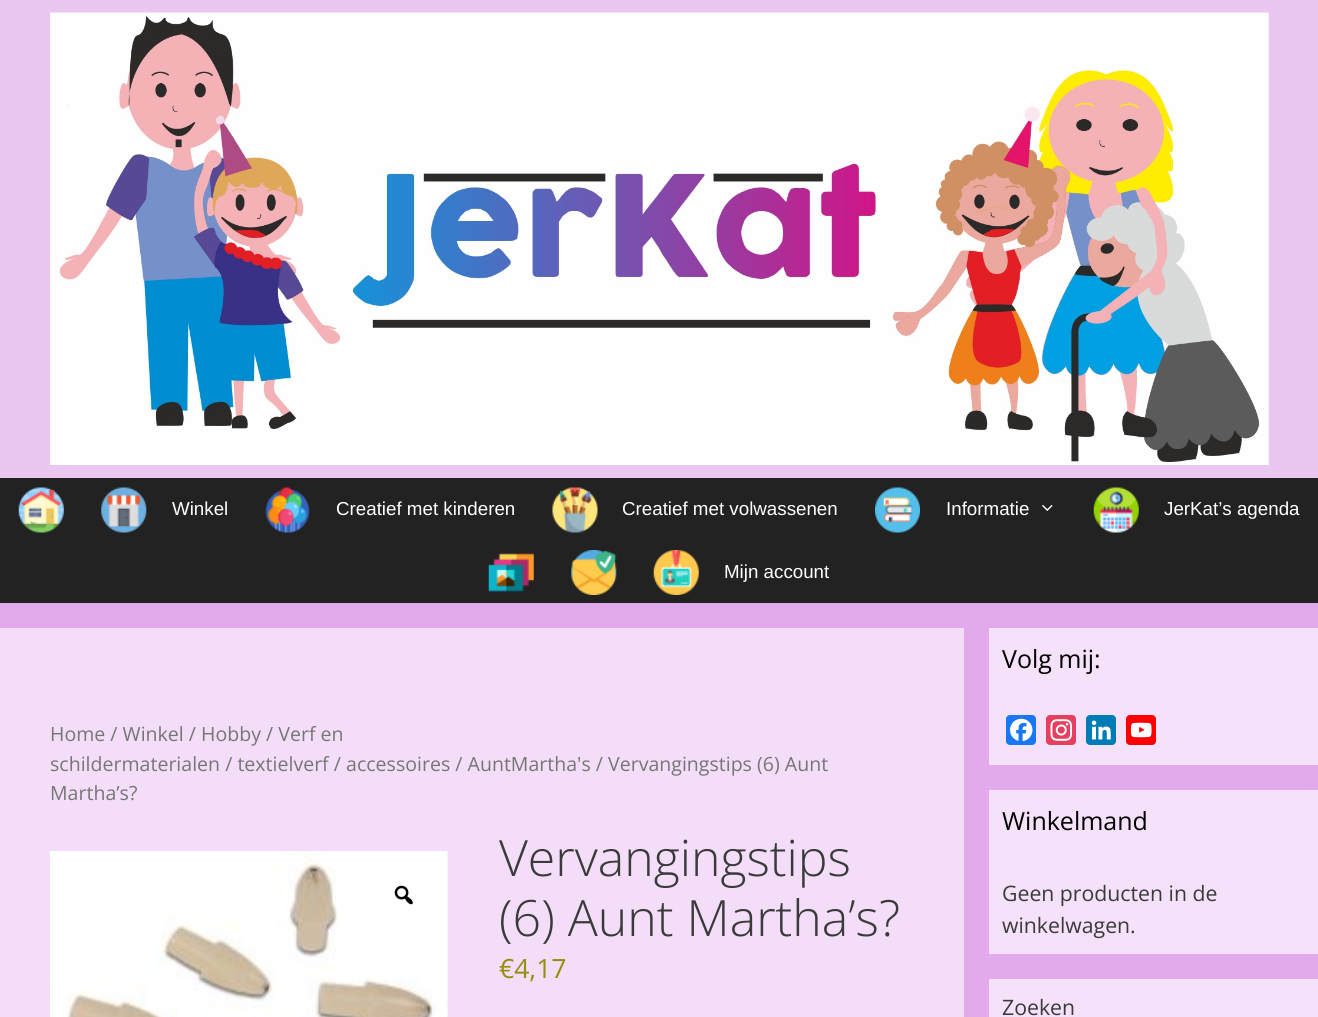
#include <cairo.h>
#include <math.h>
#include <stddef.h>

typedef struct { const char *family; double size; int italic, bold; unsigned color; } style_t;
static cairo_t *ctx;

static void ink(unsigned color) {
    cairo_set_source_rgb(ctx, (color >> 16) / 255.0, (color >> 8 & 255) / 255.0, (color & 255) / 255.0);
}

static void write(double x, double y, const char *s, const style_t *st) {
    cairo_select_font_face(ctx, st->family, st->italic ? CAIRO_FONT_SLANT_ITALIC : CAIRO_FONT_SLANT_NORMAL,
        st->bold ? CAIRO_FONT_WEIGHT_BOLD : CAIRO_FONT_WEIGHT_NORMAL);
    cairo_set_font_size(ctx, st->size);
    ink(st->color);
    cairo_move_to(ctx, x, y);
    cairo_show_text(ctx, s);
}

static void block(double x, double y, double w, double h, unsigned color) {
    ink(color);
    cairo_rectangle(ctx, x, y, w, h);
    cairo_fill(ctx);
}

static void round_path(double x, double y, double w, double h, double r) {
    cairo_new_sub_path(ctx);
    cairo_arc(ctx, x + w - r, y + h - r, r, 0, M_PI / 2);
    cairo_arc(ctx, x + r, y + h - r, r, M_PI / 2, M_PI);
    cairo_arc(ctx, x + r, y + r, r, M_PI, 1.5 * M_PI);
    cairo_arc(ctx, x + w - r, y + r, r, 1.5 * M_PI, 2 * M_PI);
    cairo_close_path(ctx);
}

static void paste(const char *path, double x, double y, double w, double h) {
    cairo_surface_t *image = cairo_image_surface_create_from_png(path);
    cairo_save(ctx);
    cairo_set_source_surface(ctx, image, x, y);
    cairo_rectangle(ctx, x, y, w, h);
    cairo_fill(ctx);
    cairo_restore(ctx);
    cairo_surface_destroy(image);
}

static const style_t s1 = {"Liberation Sans", 18.75, 0, 0, 0xffffff};
static const style_t s2 = {"Open Sans", 19.55, 0, 0, 0x767676};
static const style_t s3 = {"Open Sans Light", 50, 0, 0, 0x3a3a3a};
static const style_t s4 = {"Open Sans", 26.5, 0, 0, 0x958e09};
static const style_t s5 = {"Open Sans", 25, 0, 0, 0x000000};
static const style_t s6 = {"Open Sans", 21.25, 0, 0, 0x3a3a3a};

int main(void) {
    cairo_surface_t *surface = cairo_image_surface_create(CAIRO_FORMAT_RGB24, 1318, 1017);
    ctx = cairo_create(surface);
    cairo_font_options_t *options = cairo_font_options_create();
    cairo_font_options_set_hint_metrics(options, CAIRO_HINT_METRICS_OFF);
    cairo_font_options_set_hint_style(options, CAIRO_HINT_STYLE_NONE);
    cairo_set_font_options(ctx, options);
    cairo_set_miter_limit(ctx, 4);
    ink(0xe2aaed);
    cairo_paint(ctx);
    block(0, 0, 1318, 478, 0xeac7f1);
    paste("pic1.png", 50, 12, 1219, 453);
    block(0, 478, 1318, 125, 0x222222);
    paste("pic2.png", 18, 487, 46, 46);
    paste("pic3.png", 101, 487, 46, 46);
    write(172, 515, "Winkel", &s1);
    paste("pic4.png", 265, 487, 45, 46);
    write(336, 515, "Creatief met kinderen", &s1);
    paste("pic5.png", 552, 487, 46, 46);
    write(622, 515, "Creatief met volwassenen", &s1);
    paste("pic6.png", 875, 487, 45, 46);
    write(946, 515, "Informatie", &s1);
    paste("pic7.png", 1042, 505, 11, 6);
    paste("pic8.png", 1093, 487, 46, 46);
    write(1164, 515, "JerKat’s agenda", &s1);
    paste("pic9.png", 488, 553, 46, 39);
    paste("pic10.png", 571, 550, 46, 45);
    paste("pic11.png", 653, 550, 46, 45);
    write(724, 578, "Mijn account", &s1);
    block(0, 628, 964, 389, 0xf3ddf8);
    write(50, 741, "Home / Winkel / Hobby / Verf en", &s2);
    write(50, 771, "schildermaterialen / textielverf / accessoires / AuntMartha's / Vervangingstips (6) Aunt", &s2);
    write(50, 800, "Martha’s?", &s2);
    paste("pic12.png", 50, 851, 398, 166);
    paste("pic13.png", 394, 885, 19, 20);
    write(499, 876, "Vervangingstips", &s3);
    write(499, 936, "(6) Aunt Martha’s?", &s3);
    write(499, 978, "€4,17", &s4);
    block(989, 628, 329, 137, 0xf5e1f9);
    write(1002, 668, "Volg mij:", &s5);
    ink(0x1877f2);
    round_path(1006, 715, 30, 30, 4);
    cairo_fill(ctx);
    paste("pic14.png", 1010, 718, 23, 24);
    ink(0xe4405f);
    round_path(1046, 715, 30, 30, 4);
    cairo_fill(ctx);
    paste("pic15.png", 1050, 719, 23, 22);
    ink(0x007bb5);
    round_path(1086, 715, 30, 30, 4);
    cairo_fill(ctx);
    paste("pic16.png", 1091, 720, 20, 20);
    ink(0xff0000);
    round_path(1126, 715, 30, 30, 4);
    cairo_fill(ctx);
    paste("pic17.png", 1130, 722, 22, 16);
    block(989, 790, 329, 164, 0xf5e1f9);
    write(1002, 830, "Winkelmand", &s5);
    write(1002, 901, "Geen producten in de", &s6);
    write(1002, 933, "winkelwagen.", &s6);
    block(989, 979, 329, 38, 0xf5e1f9);
    write(1002, 1015, "Zoeken", &s6);
    cairo_surface_write_to_png(surface, "screenshot.png");
    cairo_font_options_destroy(options);
    cairo_destroy(ctx);
    cairo_surface_destroy(surface);
    return 0;
}
